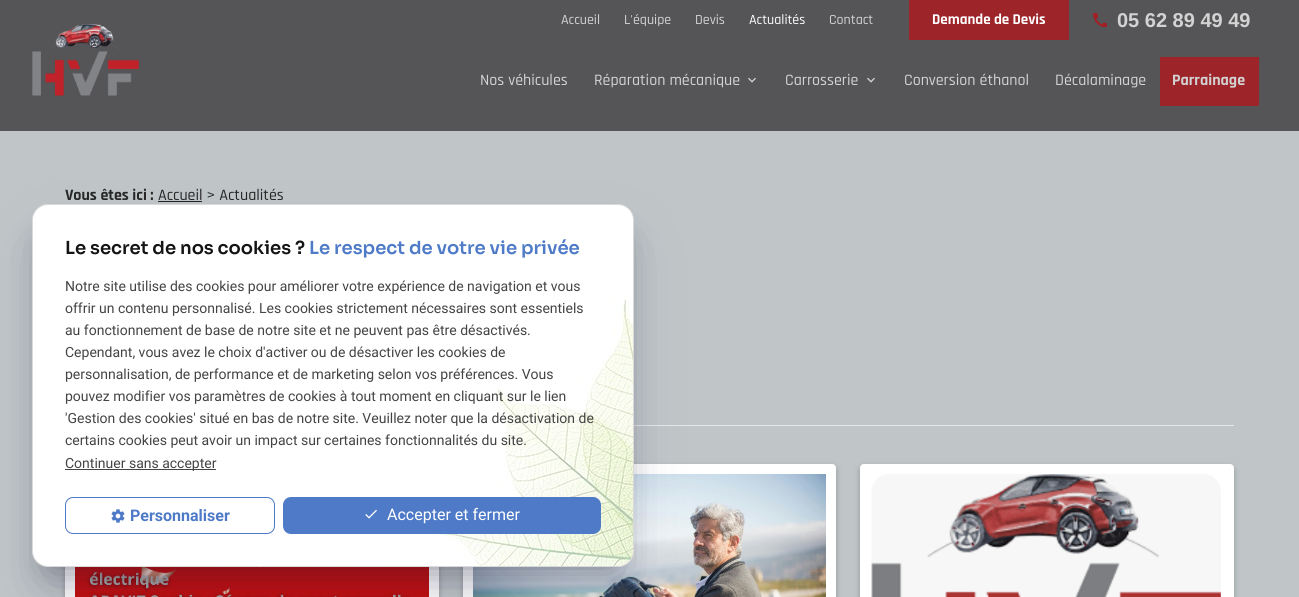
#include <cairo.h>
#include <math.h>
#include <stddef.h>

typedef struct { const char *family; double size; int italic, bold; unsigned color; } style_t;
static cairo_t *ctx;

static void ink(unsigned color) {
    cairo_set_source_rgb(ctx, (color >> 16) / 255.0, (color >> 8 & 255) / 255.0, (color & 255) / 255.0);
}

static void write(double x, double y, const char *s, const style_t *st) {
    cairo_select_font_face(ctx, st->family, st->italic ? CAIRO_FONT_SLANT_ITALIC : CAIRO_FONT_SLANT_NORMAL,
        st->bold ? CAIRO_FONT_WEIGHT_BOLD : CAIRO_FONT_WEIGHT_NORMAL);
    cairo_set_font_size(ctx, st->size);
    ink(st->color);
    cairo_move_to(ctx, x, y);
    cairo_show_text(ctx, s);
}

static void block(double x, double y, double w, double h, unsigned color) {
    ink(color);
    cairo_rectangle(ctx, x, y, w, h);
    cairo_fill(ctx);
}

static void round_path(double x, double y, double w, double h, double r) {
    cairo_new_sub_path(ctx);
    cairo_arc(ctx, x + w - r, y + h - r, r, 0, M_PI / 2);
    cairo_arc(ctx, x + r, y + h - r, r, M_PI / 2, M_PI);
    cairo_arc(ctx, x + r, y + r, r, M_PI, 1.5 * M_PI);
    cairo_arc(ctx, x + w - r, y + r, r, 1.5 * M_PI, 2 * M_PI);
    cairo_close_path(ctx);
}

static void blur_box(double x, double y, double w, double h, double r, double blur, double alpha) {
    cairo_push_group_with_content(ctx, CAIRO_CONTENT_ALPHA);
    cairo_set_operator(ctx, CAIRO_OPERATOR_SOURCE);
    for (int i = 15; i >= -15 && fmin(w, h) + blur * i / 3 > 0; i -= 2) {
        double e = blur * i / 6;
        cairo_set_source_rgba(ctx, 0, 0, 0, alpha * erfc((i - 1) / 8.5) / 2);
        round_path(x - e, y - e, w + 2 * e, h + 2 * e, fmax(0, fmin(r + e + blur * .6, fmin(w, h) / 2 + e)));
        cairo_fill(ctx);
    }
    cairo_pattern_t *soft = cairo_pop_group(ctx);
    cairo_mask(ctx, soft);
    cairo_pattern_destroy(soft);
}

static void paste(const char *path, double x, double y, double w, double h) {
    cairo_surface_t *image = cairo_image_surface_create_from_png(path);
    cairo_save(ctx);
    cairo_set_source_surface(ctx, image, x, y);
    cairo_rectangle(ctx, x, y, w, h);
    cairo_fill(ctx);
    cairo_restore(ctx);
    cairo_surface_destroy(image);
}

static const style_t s1 = {"Rajdhani Medium", 14, 0, 0, 0xd3d3d3};
static const style_t s2 = {"Rajdhani Medium", 14, 0, 0, 0xffffff};
static const style_t s3 = {"Rajdhani", 15, 0, 1, 0xffffff};
static const style_t s4 = {"Liberation Sans", 20, 0, 1, 0xd3d3d3};
static const style_t s5 = {"Rajdhani Medium", 16, 0, 0, 0xd3d3d3};
static const style_t s6 = {"Rajdhani", 16, 0, 1, 0xd3d3d3};
static const style_t s7 = {"Rajdhani", 16, 0, 1, 0x262626};
static const style_t s8 = {"Rajdhani Medium", 16, 0, 0, 0x262626};
static const style_t s9 = {"Sora SemiBold", 18, 0, 0, 0x141414};
static const style_t s10 = {"Sora SemiBold", 18, 0, 0, 0x4e7ac7};
static const style_t s11 = {"Roboto", 14, 0, 0, 0x444444};
static const style_t s12 = {"Roboto", 16, 0, 1, 0x4e7ac7};
static const style_t s13 = {"Roboto", 16, 0, 0, 0xffffff};

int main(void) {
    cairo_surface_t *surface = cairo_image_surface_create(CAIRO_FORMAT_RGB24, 1299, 597);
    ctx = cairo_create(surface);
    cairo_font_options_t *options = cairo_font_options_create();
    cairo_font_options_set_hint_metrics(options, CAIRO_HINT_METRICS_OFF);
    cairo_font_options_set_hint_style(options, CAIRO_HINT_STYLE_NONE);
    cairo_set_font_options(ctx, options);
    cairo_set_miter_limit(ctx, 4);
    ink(0xc0c6c8);
    cairo_paint(ctx);
    block(0, 0, 1299, 131, 0x555557);
    write(561, 24, "Accueil", &s1);
    write(624, 24, "L'équipe", &s1);
    write(695, 24, "Devis", &s1);
    write(749, 24, "Actualités", &s2);
    write(829, 24, "Contact", &s1);
    block(909, 0, 160, 40, 0x9d2529);
    write(932, 24, "Demande de Devis", &s3);
    paste("pic1.png", 1093, 13, 14, 14);
    write(1117, 27, "05 62 89 49 49", &s4);
    paste("pic2.png", 32, 24, 107, 72);
    write(480, 85, "Nos véhicules", &s5);
    write(594, 85, "Réparation mécanique", &s5);
    paste("pic3.png", 748, 77, 8, 6);
    write(785, 85, "Carrosserie", &s5);
    paste("pic3.png", 867, 77, 8, 6);
    write(904, 85, "Conversion éthanol", &s5);
    write(1055, 85, "Décalaminage", &s5);
    block(1160, 57, 99, 49, 0x9d2529);
    write(1172, 85, "Parrainage", &s6);
    write(65, 200, "Vous êtes ici :", &s7);
    write(158, 200, "Accueil > Actualités", &s8);
    block(158, 201, 44, 1, 0x262626);
    block(634, 425, 600, 1, 0xe7e7e7);
    ink(0x000000);
    blur_box(65, 467, 374, 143, 4, 3, 0.25);
    block(65, 567, 374, 30, 0xffffff);
    paste("pic4.png", 75, 567, 354, 30);
    ink(0x000000);
    blur_box(463, 467, 373, 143, 4, 3, 0.25);
    ink(0xffffff);
    round_path(463, 464, 373, 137, 4);
    cairo_fill(ctx);
    paste("pic5.png", 473, 474, 353, 123);
    ink(0x000000);
    blur_box(860, 467, 374, 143, 4, 3, 0.25);
    ink(0xffffff);
    round_path(860, 464, 374, 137, 4);
    cairo_fill(ctx);
    paste("pic6.png", 871, 474, 350, 123);
    ink(0x000000);
    blur_box(50, 240, 566, 327, 0, 18, 0.3);
    ink(0x32325d);
    blur_box(44, 246, 578, 339, 4, 30, 0.25);
    ink(0xffffff);
    round_path(32.5, 204.5, 601, 362, 15.5);
    cairo_fill_preserve(ctx);
    ink(0xd9d9d9);
    cairo_set_line_width(ctx, 1);
    cairo_stroke(ctx);
    write(65, 254, "Le secret de nos cookies ?", &s9);
    write(309, 254, "Le respect de votre vie privée", &s10);
    write(65, 291, "Notre site utilise des cookies pour améliorer votre expérience de navigation et vous", &s11);
    paste("pic9.png", 433, 296, 200, 270);
    write(65, 313, "offrir un contenu personnalisé. Les cookies strictement nécessaires sont essentiels", &s11);
    write(65, 335, "au fonctionnement de base de notre site et ne peuvent pas être désactivés.", &s11);
    write(65, 357, "Cependant, vous avez le choix d'activer ou de désactiver les cookies de", &s11);
    write(65, 379, "personnalisation, de performance et de marketing selon vos préférences. Vous", &s11);
    write(65, 401, "pouvez modifier vos paramètres de cookies à tout moment en cliquant sur le lien", &s11);
    write(65, 423, "'Gestion des cookies' situé en bas de notre site. Veuillez noter que la désactivation de", &s11);
    write(65, 445, "certains cookies peut avoir un impact sur certaines fonctionnalités du site.", &s11);
    block(65, 469, 151, 1, 0x444444);
    write(65, 468, "Continuer sans accepter", &s11);
    round_path(65.5, 497.5, 209, 36, 7.5);
    ink(0x4e7ac7);
    cairo_stroke(ctx);
    paste("pic7.png", 111, 509, 14, 14);
    write(130, 521, "Personnaliser", &s12);
    round_path(283, 497, 318, 37, 8);
    cairo_fill(ctx);
    paste("pic8.png", 365, 509, 12, 10);
    write(387, 520, "Accepter et fermer", &s13);
    cairo_surface_write_to_png(surface, "screenshot.png");
    cairo_font_options_destroy(options);
    cairo_destroy(ctx);
    cairo_surface_destroy(surface);
    return 0;
}
